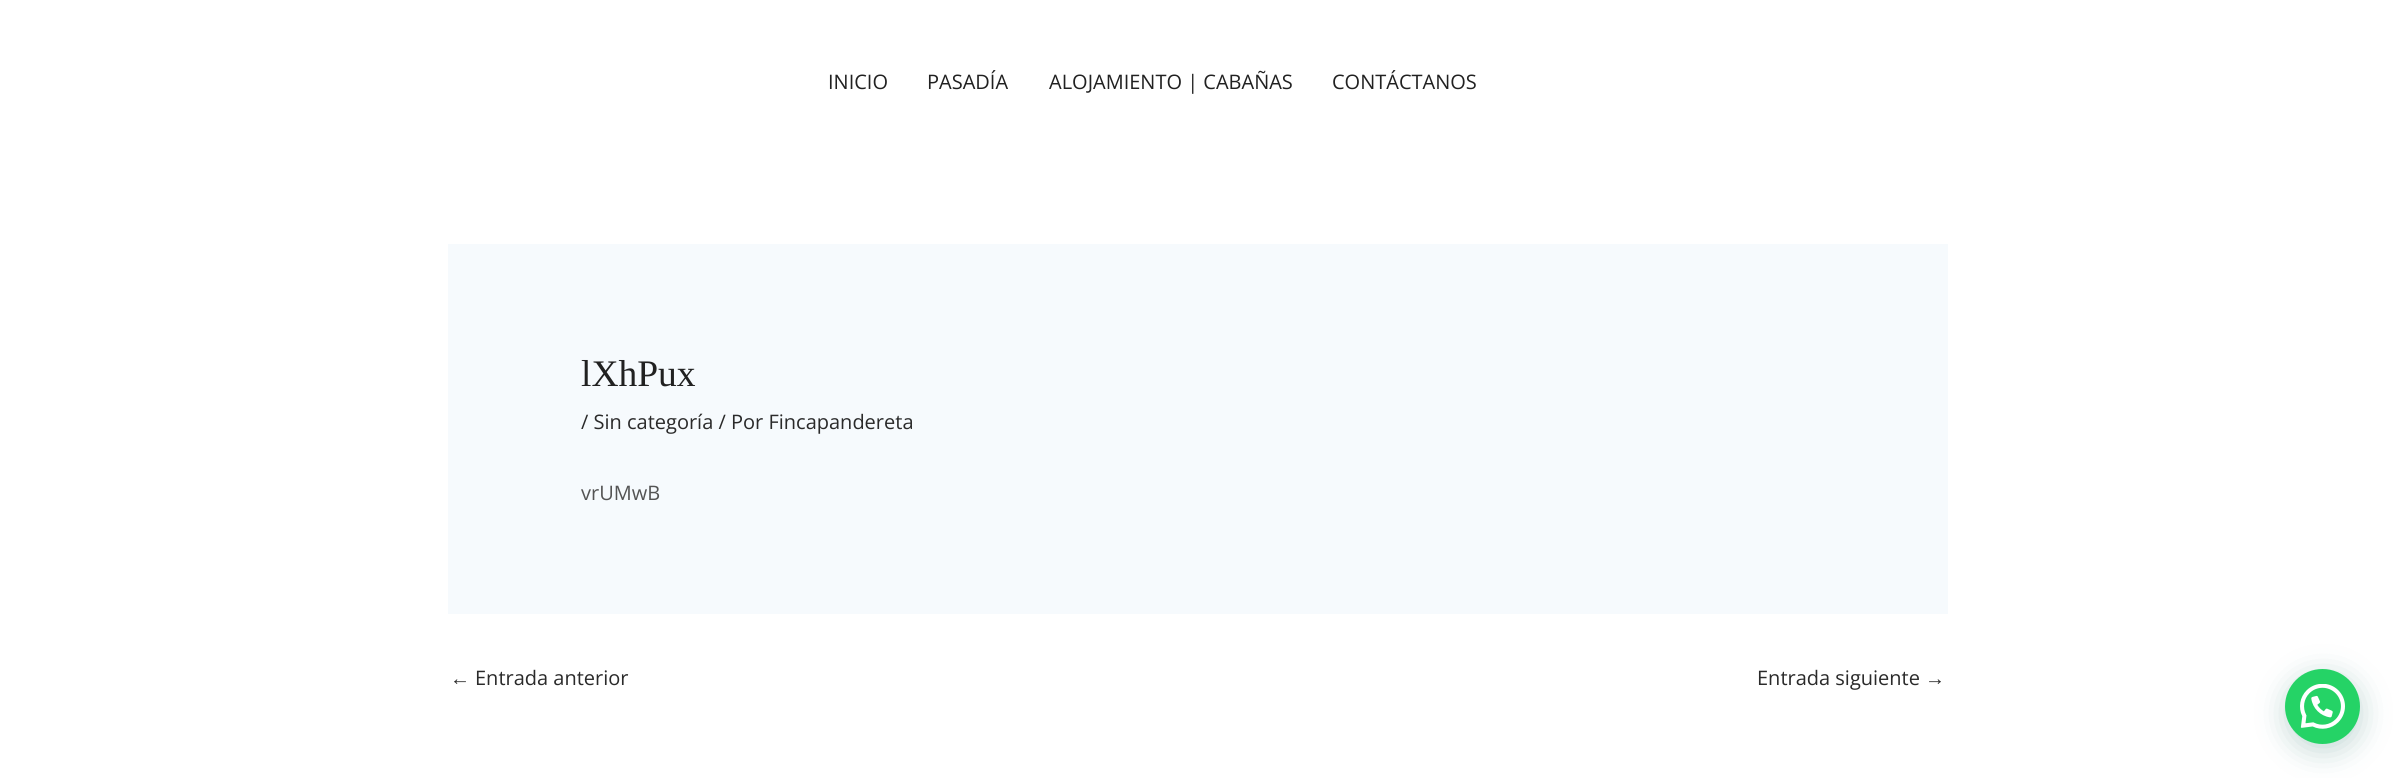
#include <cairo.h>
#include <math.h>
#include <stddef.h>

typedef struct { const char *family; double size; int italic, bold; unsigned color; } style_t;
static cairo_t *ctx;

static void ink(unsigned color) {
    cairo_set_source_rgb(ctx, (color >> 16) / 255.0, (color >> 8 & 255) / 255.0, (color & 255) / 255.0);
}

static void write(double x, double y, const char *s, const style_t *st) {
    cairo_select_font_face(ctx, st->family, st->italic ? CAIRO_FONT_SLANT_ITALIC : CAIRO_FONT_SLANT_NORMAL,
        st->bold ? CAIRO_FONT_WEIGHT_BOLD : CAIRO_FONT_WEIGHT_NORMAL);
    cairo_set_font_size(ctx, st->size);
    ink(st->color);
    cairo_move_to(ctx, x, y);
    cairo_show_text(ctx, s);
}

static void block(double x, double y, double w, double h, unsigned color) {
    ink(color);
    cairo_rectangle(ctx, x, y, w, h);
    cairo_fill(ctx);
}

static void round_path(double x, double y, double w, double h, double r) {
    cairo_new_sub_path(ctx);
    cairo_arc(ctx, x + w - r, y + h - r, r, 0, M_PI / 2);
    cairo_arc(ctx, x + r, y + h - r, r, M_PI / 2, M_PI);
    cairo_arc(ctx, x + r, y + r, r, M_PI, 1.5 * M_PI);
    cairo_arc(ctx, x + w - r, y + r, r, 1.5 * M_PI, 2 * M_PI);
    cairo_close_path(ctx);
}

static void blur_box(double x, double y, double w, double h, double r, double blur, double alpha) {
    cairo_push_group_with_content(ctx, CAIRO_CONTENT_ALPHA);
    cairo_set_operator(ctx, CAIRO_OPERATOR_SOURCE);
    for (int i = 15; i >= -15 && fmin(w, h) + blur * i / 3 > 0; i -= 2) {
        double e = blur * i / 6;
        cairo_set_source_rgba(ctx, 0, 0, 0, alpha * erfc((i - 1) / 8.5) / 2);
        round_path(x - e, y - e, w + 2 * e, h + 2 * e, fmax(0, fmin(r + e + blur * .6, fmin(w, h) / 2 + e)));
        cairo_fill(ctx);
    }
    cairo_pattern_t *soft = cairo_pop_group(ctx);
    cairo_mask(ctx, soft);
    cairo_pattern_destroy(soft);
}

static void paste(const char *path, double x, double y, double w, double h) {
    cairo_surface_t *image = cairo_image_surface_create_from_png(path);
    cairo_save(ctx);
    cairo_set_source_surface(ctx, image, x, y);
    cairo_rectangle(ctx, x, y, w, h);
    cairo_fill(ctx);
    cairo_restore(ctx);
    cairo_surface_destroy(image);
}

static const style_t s1 = {"Open Sans", 20, 0, 0, 0x212121};
static const style_t s2 = {"Liberation Serif", 37.5, 0, 0, 0x212121};
static const style_t s3 = {"Open Sans", 20, 0, 0, 0x2a2a2a};
static const style_t s4 = {"Open Sans", 20, 0, 0, 0x545454};
static const style_t s5 = {"Liberation Sans", 20, 0, 0, 0x2a2a2a};

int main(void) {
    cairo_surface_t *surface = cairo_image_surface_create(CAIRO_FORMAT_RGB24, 2394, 778);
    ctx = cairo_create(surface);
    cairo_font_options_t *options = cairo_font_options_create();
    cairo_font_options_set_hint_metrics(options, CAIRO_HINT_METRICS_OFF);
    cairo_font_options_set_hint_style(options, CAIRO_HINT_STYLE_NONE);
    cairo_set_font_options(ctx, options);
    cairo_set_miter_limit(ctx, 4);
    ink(0xffffff);
    cairo_paint(ctx);
    write(828, 89, "INICIO", &s1);
    write(927, 89, "PASADÍA", &s1);
    write(1049, 89, "ALOJAMIENTO | CABAÑAS", &s1);
    write(1332, 89, "CONTÁCTANOS", &s1);
    block(448, 244, 1500, 370, 0xf6fafd);
    write(581, 386, "lXhPux", &s2);
    write(581, 429, "/ Sin categoría / Por Fincapandereta", &s3);
    write(581, 500, "vrUMwB", &s4);
    write(450, 685, "←", &s5);
    write(475, 685, "Entrada anterior", &s3);
    write(1757, 685, "Entrada siguiente", &s3);
    write(1925, 685, "→", &s5);
    ink(0x075e54);
    blur_box(2286, 676, 75, 75, 37.5, 15, 0.24);
    ink(0x25d366);
    cairo_arc(ctx, 2322.5, 706.5, 37.5, 0, 2 * M_PI);
    cairo_fill(ctx);
    paste("pic1.png", 2300, 684, 45, 45);
    cairo_surface_write_to_png(surface, "screenshot.png");
    cairo_font_options_destroy(options);
    cairo_destroy(ctx);
    cairo_surface_destroy(surface);
    return 0;
}
